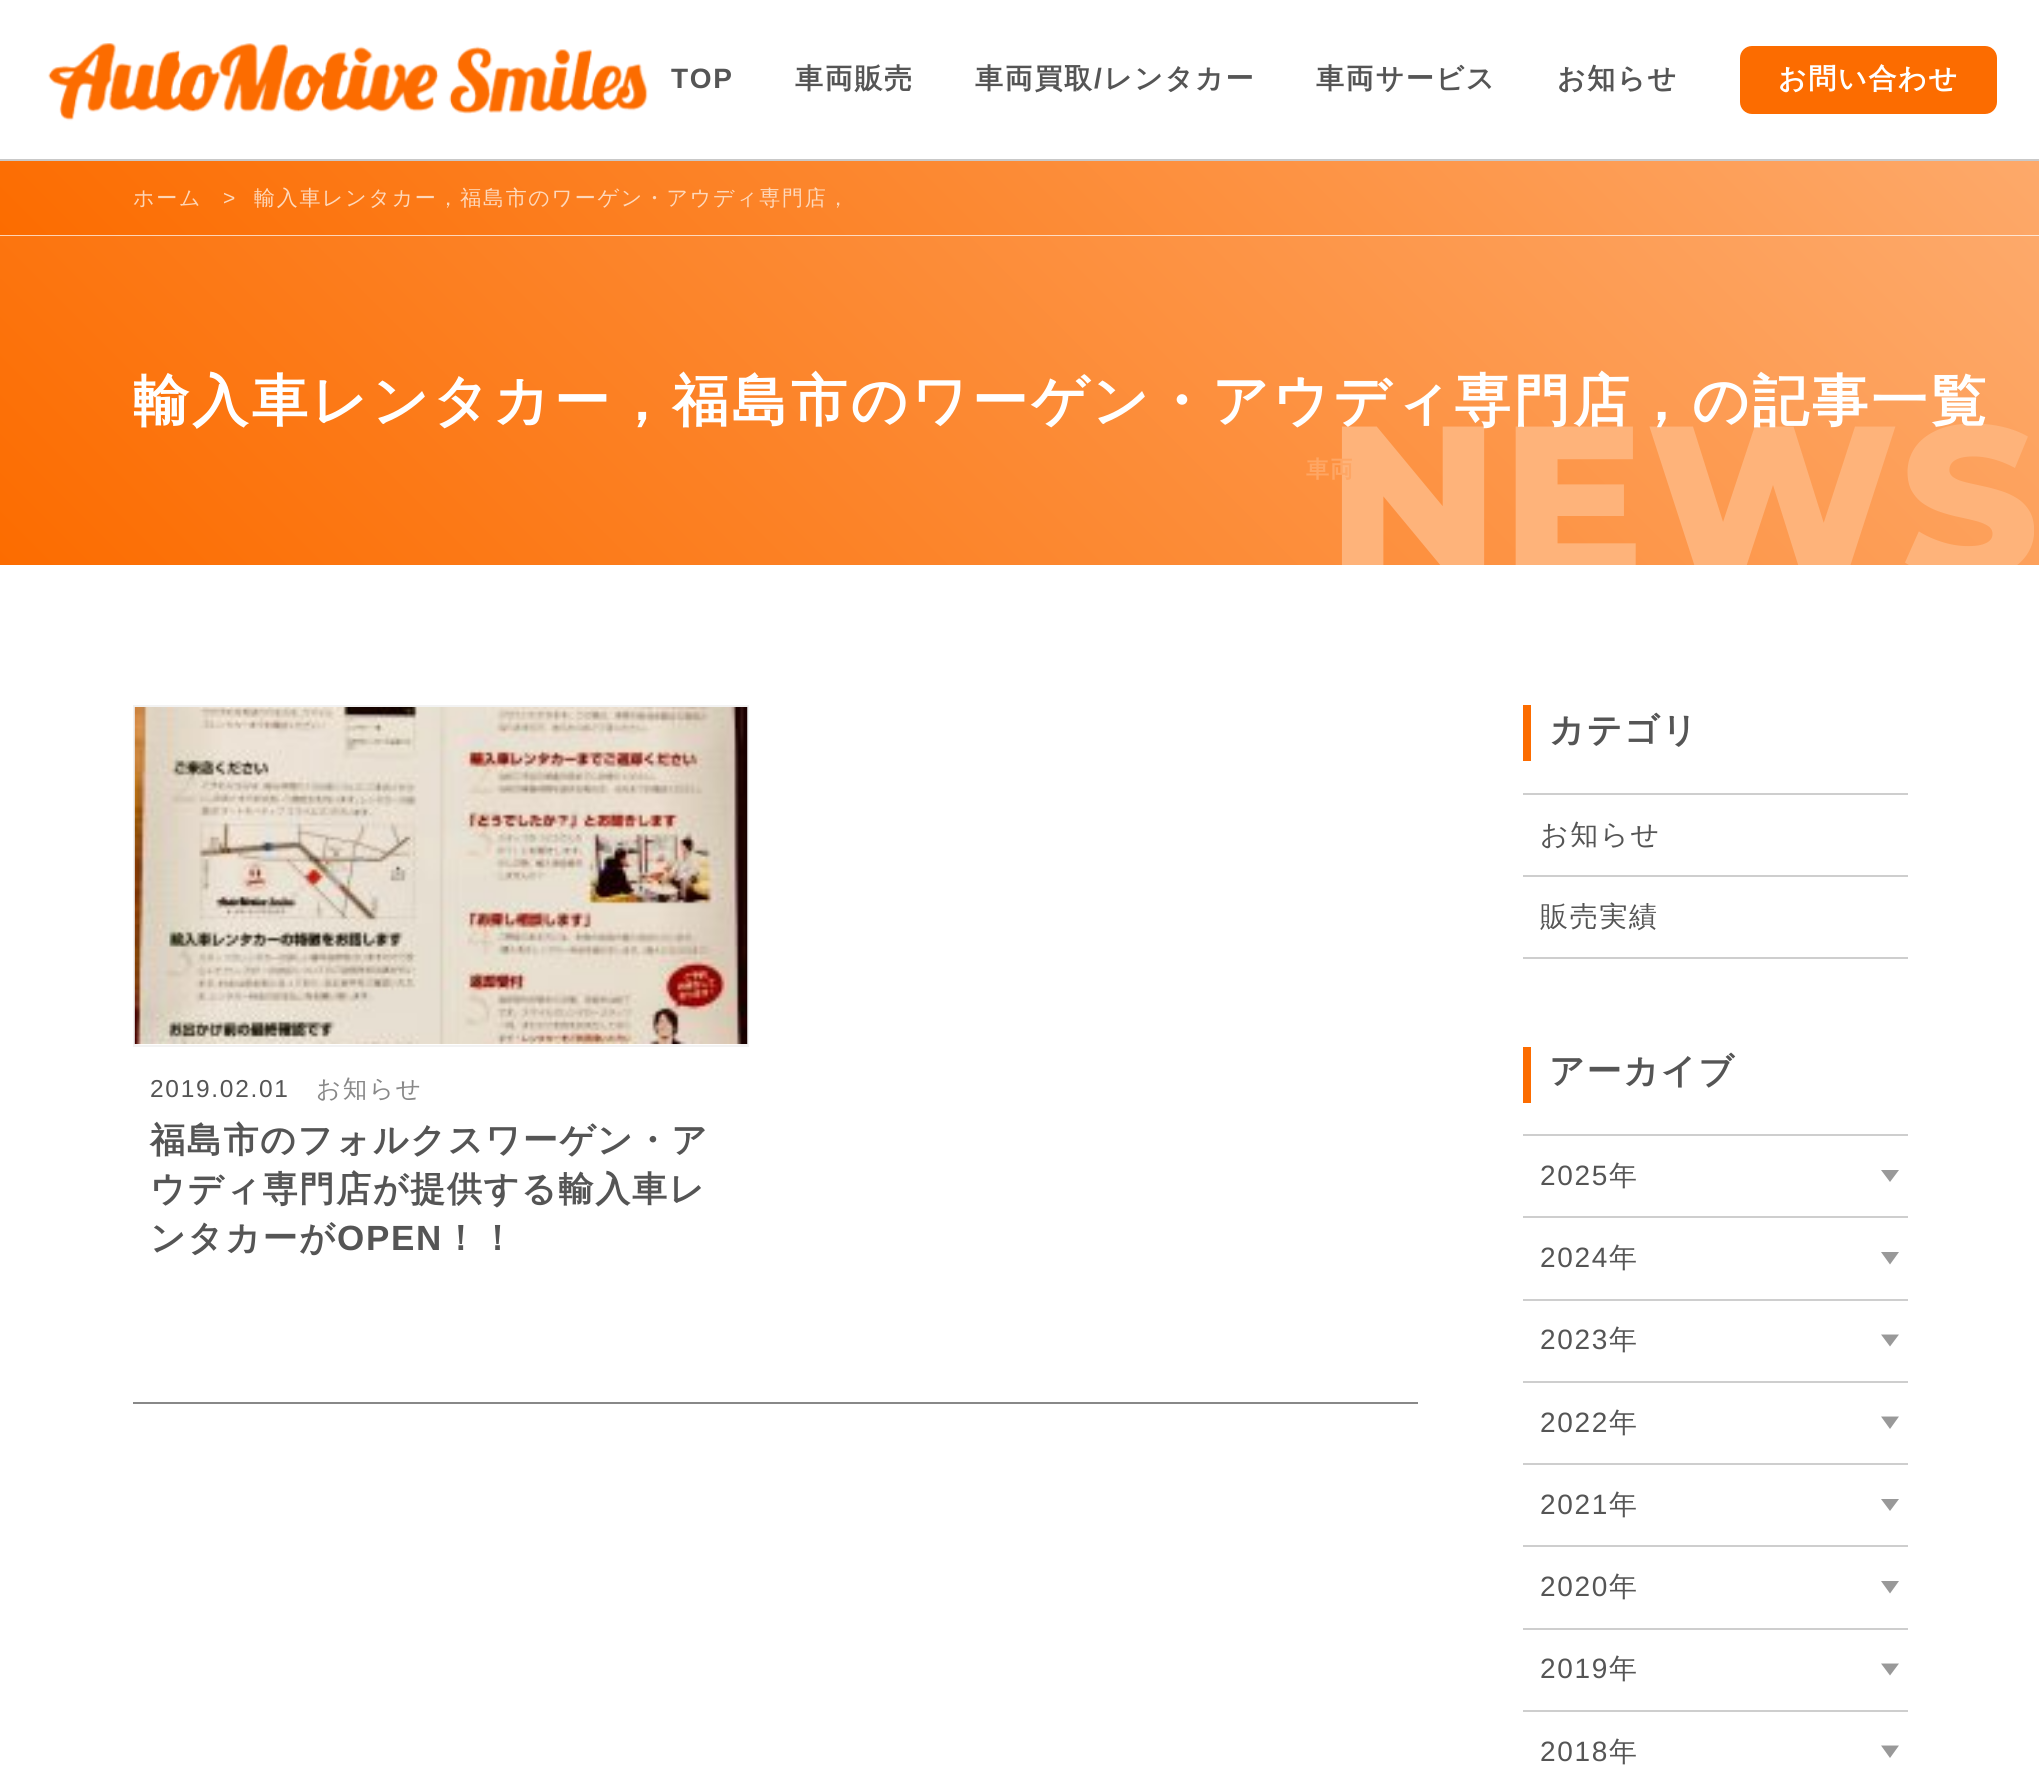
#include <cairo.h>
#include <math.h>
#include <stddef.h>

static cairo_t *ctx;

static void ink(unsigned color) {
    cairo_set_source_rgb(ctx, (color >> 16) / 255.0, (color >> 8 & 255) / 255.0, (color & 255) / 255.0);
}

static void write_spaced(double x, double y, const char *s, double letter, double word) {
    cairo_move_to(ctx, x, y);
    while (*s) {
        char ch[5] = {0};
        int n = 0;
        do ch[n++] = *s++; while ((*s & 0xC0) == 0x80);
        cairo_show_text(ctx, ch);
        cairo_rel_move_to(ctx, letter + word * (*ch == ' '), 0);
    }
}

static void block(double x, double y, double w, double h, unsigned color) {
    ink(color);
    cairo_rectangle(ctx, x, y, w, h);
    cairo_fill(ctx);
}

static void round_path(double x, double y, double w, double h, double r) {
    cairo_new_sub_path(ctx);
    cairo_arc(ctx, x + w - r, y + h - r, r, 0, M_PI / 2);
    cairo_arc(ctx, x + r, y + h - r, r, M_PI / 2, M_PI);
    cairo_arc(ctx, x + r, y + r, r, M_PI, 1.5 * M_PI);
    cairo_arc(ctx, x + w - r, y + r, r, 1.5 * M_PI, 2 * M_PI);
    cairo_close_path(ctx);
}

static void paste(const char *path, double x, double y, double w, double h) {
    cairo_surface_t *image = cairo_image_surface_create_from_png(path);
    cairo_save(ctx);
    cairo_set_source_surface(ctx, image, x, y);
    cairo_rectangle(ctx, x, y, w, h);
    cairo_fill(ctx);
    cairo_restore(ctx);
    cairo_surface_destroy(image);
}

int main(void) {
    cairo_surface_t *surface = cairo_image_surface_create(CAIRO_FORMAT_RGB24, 2039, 1790);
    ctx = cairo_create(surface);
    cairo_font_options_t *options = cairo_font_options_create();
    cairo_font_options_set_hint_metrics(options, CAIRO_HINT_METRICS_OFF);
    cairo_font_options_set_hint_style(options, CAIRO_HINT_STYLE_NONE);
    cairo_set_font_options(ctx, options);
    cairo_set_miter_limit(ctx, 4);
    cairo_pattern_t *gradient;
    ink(0xffffff);
    cairo_paint(ctx);
    block(0, 159, 2039, 2, 0xc9c9c9);
    paste("pic1.png", 48, 43, 600, 78);
    cairo_select_font_face(ctx, "Liberation Sans", CAIRO_FONT_SLANT_NORMAL, CAIRO_FONT_WEIGHT_BOLD);
    cairo_set_font_size(ctx, 28);
    ink(0x555555);
    write_spaced(671, 88, "TOP", 1.7, 0);
    cairo_select_font_face(ctx, "WenQuanYi Zen Hei", CAIRO_FONT_SLANT_NORMAL, CAIRO_FONT_WEIGHT_BOLD);
    write_spaced(795, 88, "車両販売", 1.7, 0);
    write_spaced(975, 88, "車両買取", 1.7, 0);
    cairo_select_font_face(ctx, "Liberation Sans", CAIRO_FONT_SLANT_NORMAL, CAIRO_FONT_WEIGHT_BOLD);
    write_spaced(1094, 88, "/", 1.7, 0);
    cairo_select_font_face(ctx, "WenQuanYi Zen Hei", CAIRO_FONT_SLANT_NORMAL, CAIRO_FONT_WEIGHT_BOLD);
    write_spaced(1104, 88, "レンタカー", 1.7, 0);
    write_spaced(1316, 88, "車両サービス", 1.7, 0);
    write_spaced(1557, 88, "お知らせ", 1.7, 0);
    ink(0xfc6c00);
    round_path(1742, 48, 253, 64, 10);
    cairo_fill_preserve(ctx);
    cairo_set_line_width(ctx, 4);
    cairo_stroke(ctx);
    ink(0xffffff);
    write_spaced(1778, 88, "お問い合わせ", 1.7, 0);
    gradient = cairo_pattern_create_linear(428, 993, 1613, -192);
    cairo_pattern_add_color_stop_rgba(gradient, 0, 0.988, 0.424, 0, 1);
    cairo_pattern_add_color_stop_rgba(gradient, 1, 0.992, 0.663, 0.416, 1);
    cairo_set_source(ctx, gradient);
    cairo_pattern_destroy(gradient);
    cairo_rectangle(ctx, 0, 236, 2039, 329);
    cairo_fill(ctx);
    cairo_save(ctx);
    cairo_rectangle(ctx, 0, 236, 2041, 329);
    cairo_clip(ctx);
    cairo_select_font_face(ctx, "Montserrat ExtraBold", CAIRO_FONT_SLANT_NORMAL, CAIRO_FONT_WEIGHT_NORMAL);
    cairo_set_font_size(ctx, 213.5);
    ink(0xfeb37a);
    write_spaced(1327, 576, "NEWS", 1.7, 0);
    cairo_restore(ctx);
    cairo_set_font_size(ctx, 23);
    ink(0xfea664);
    write_spaced(1306, 477, "車両", 1, 0);
    gradient = cairo_pattern_create_linear(492, 726, 1549, -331);
    cairo_pattern_add_color_stop_rgba(gradient, 0, 0.988, 0.424, 0, 1);
    cairo_pattern_add_color_stop_rgba(gradient, 1, 0.992, 0.663, 0.416, 1);
    cairo_set_source(ctx, gradient);
    cairo_pattern_destroy(gradient);
    cairo_rectangle(ctx, 0, 161, 2039, 74);
    cairo_fill(ctx);
    gradient = cairo_pattern_create_linear(492, 800, 1549, -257);
    cairo_pattern_add_color_stop_rgba(gradient, 0, 0.996, 0.827, 0.702, 1);
    cairo_pattern_add_color_stop_rgba(gradient, 1, 0.996, 0.898, 0.824, 1);
    cairo_set_source(ctx, gradient);
    cairo_pattern_destroy(gradient);
    cairo_rectangle(ctx, 0, 235, 2039, 1);
    cairo_fill(ctx);
    cairo_select_font_face(ctx, "WenQuanYi Zen Hei Medium", CAIRO_FONT_SLANT_NORMAL, CAIRO_FONT_WEIGHT_NORMAL);
    cairo_set_font_size(ctx, 21);
    ink(0xfed5b5);
    write_spaced(133, 205, "ホーム", 1.7, 0);
    cairo_select_font_face(ctx, "Liberation Sans", CAIRO_FONT_SLANT_NORMAL, CAIRO_FONT_WEIGHT_NORMAL);
    ink(0xfed8bb);
    write_spaced(223, 205, ">", 1.7, 0);
    cairo_select_font_face(ctx, "WenQuanYi Zen Hei Medium", CAIRO_FONT_SLANT_NORMAL, CAIRO_FONT_WEIGHT_NORMAL);
    write_spaced(254, 205, "輸入車レンタカー，福島市のワーゲン・アウディ専門店，", 1.7, 0);
    cairo_select_font_face(ctx, "WenQuanYi Zen Hei", CAIRO_FONT_SLANT_NORMAL, CAIRO_FONT_WEIGHT_BOLD);
    cairo_set_font_size(ctx, 56);
    ink(0xffffff);
    write_spaced(133, 420, "輸入車レンタカー，福島市のワーゲン・アウディ専門店，の記事一覧", 3.35, 0);
    cairo_rectangle(ctx, 134, 706, 614, 340);
    ink(0xf2f2f2);
    cairo_set_line_width(ctx, 2);
    cairo_stroke(ctx);
    paste("pic2.png", 134, 707, 614, 338);
    cairo_select_font_face(ctx, "Liberation Sans", CAIRO_FONT_SLANT_NORMAL, CAIRO_FONT_WEIGHT_NORMAL);
    cairo_set_font_size(ctx, 24.5);
    ink(0x555555);
    write_spaced(150, 1097, "2019.02.01", 1.7, 0);
    cairo_select_font_face(ctx, "WenQuanYi Zen Hei Medium", CAIRO_FONT_SLANT_NORMAL, CAIRO_FONT_WEIGHT_NORMAL);
    ink(0x888888);
    write_spaced(316, 1097, "お知らせ", 1.7, 0);
    cairo_select_font_face(ctx, "WenQuanYi Zen Hei", CAIRO_FONT_SLANT_NORMAL, CAIRO_FONT_WEIGHT_BOLD);
    cairo_set_font_size(ctx, 35);
    ink(0x555555);
    write_spaced(150, 1152, "福島市のフォルクスワーゲン・ア", 1.7, 0);
    write_spaced(150, 1201, "ウディ専門店が提供する輸入車レ", 1.7, 0);
    write_spaced(150, 1250, "ンタカーが", 1.7, 0);
    cairo_select_font_face(ctx, "Liberation Sans", CAIRO_FONT_SLANT_NORMAL, CAIRO_FONT_WEIGHT_BOLD);
    write_spaced(337, 1250, "OPEN", 1.7, 0);
    cairo_select_font_face(ctx, "WenQuanYi Zen Hei", CAIRO_FONT_SLANT_NORMAL, CAIRO_FONT_WEIGHT_BOLD);
    write_spaced(443, 1250, "！！", 1.7, 0);
    block(133, 1402, 1285, 2, 0x888888);
    block(1523, 705, 8, 56, 0xfc6c00);
    ink(0x555555);
    write_spaced(1549, 742, "カテゴリ", 1.7, 0);
    block(1523, 793, 385, 2, 0xcecece);
    cairo_select_font_face(ctx, "WenQuanYi Zen Hei Medium", CAIRO_FONT_SLANT_NORMAL, CAIRO_FONT_WEIGHT_NORMAL);
    cairo_set_font_size(ctx, 28);
    ink(0x555555);
    write_spaced(1540, 844, "お知らせ", 1.7, 0);
    block(1523, 875, 385, 2, 0xcecece);
    block(1523, 957, 385, 2, 0xcecece);
    ink(0x555555);
    write_spaced(1540, 926, "販売実績", 1.7, 0);
    block(1523, 1047, 8, 56, 0xfc6c00);
    cairo_select_font_face(ctx, "WenQuanYi Zen Hei", CAIRO_FONT_SLANT_NORMAL, CAIRO_FONT_WEIGHT_BOLD);
    cairo_set_font_size(ctx, 35);
    ink(0x555555);
    write_spaced(1549, 1083, "アーカイブ", 1.7, 0);
    block(1523, 1134, 385, 2, 0xcecece);
    cairo_select_font_face(ctx, "Liberation Sans", CAIRO_FONT_SLANT_NORMAL, CAIRO_FONT_WEIGHT_NORMAL);
    cairo_set_font_size(ctx, 28);
    ink(0x555555);
    write_spaced(1540, 1185, "2025", 1.7, 0);
    cairo_select_font_face(ctx, "WenQuanYi Zen Hei Medium", CAIRO_FONT_SLANT_NORMAL, CAIRO_FONT_WEIGHT_NORMAL);
    write_spaced(1609, 1185, "年", 1.7, 0);
    ink(0x999999);
    cairo_new_path(ctx);
    cairo_move_to(ctx, 1881, 1170);
    cairo_line_to(ctx, 1899, 1170);
    cairo_line_to(ctx, 1890, 1182);
    cairo_close_path(ctx);
    cairo_fill(ctx);
    block(1523, 1216, 385, 2, 0xcecece);
    cairo_select_font_face(ctx, "Liberation Sans", CAIRO_FONT_SLANT_NORMAL, CAIRO_FONT_WEIGHT_NORMAL);
    ink(0x555555);
    write_spaced(1540, 1267, "2024", 1.7, 0);
    cairo_select_font_face(ctx, "WenQuanYi Zen Hei Medium", CAIRO_FONT_SLANT_NORMAL, CAIRO_FONT_WEIGHT_NORMAL);
    write_spaced(1609, 1267, "年", 1.7, 0);
    ink(0x999999);
    cairo_new_path(ctx);
    cairo_move_to(ctx, 1881, 1252);
    cairo_line_to(ctx, 1899, 1252);
    cairo_line_to(ctx, 1890, 1264.5);
    cairo_close_path(ctx);
    cairo_fill(ctx);
    block(1523, 1299, 385, 2, 0xcecece);
    cairo_select_font_face(ctx, "Liberation Sans", CAIRO_FONT_SLANT_NORMAL, CAIRO_FONT_WEIGHT_NORMAL);
    ink(0x555555);
    write_spaced(1540, 1349, "2023", 1.7, 0);
    cairo_select_font_face(ctx, "WenQuanYi Zen Hei Medium", CAIRO_FONT_SLANT_NORMAL, CAIRO_FONT_WEIGHT_NORMAL);
    write_spaced(1609, 1349, "年", 1.7, 0);
    ink(0x999999);
    cairo_new_path(ctx);
    cairo_move_to(ctx, 1881, 1334.5);
    cairo_line_to(ctx, 1899, 1334.5);
    cairo_line_to(ctx, 1890, 1346.5);
    cairo_close_path(ctx);
    cairo_fill(ctx);
    block(1523, 1381, 385, 2, 0xcecece);
    cairo_select_font_face(ctx, "Liberation Sans", CAIRO_FONT_SLANT_NORMAL, CAIRO_FONT_WEIGHT_NORMAL);
    ink(0x555555);
    write_spaced(1540, 1432, "2022", 1.7, 0);
    cairo_select_font_face(ctx, "WenQuanYi Zen Hei Medium", CAIRO_FONT_SLANT_NORMAL, CAIRO_FONT_WEIGHT_NORMAL);
    write_spaced(1609, 1432, "年", 1.7, 0);
    ink(0x999999);
    cairo_new_path(ctx);
    cairo_move_to(ctx, 1881, 1416.5);
    cairo_line_to(ctx, 1899, 1416.5);
    cairo_line_to(ctx, 1890, 1429);
    cairo_close_path(ctx);
    cairo_fill(ctx);
    block(1523, 1463, 385, 2, 0xcecece);
    cairo_select_font_face(ctx, "Liberation Sans", CAIRO_FONT_SLANT_NORMAL, CAIRO_FONT_WEIGHT_NORMAL);
    ink(0x555555);
    write_spaced(1540, 1514, "2021", 1.7, 0);
    cairo_select_font_face(ctx, "WenQuanYi Zen Hei Medium", CAIRO_FONT_SLANT_NORMAL, CAIRO_FONT_WEIGHT_NORMAL);
    write_spaced(1609, 1514, "年", 1.7, 0);
    ink(0x999999);
    cairo_new_path(ctx);
    cairo_move_to(ctx, 1881, 1499);
    cairo_line_to(ctx, 1899, 1499);
    cairo_line_to(ctx, 1890, 1511);
    cairo_close_path(ctx);
    cairo_fill(ctx);
    block(1523, 1545, 385, 2, 0xcecece);
    cairo_select_font_face(ctx, "Liberation Sans", CAIRO_FONT_SLANT_NORMAL, CAIRO_FONT_WEIGHT_NORMAL);
    ink(0x555555);
    write_spaced(1540, 1596, "2020", 1.7, 0);
    cairo_select_font_face(ctx, "WenQuanYi Zen Hei Medium", CAIRO_FONT_SLANT_NORMAL, CAIRO_FONT_WEIGHT_NORMAL);
    write_spaced(1609, 1596, "年", 1.7, 0);
    ink(0x999999);
    cairo_new_path(ctx);
    cairo_move_to(ctx, 1881, 1581);
    cairo_line_to(ctx, 1899, 1581);
    cairo_line_to(ctx, 1890, 1593.5);
    cairo_close_path(ctx);
    cairo_fill(ctx);
    block(1523, 1628, 385, 2, 0xcecece);
    cairo_select_font_face(ctx, "Liberation Sans", CAIRO_FONT_SLANT_NORMAL, CAIRO_FONT_WEIGHT_NORMAL);
    ink(0x555555);
    write_spaced(1540, 1678, "2019", 1.7, 0);
    cairo_select_font_face(ctx, "WenQuanYi Zen Hei Medium", CAIRO_FONT_SLANT_NORMAL, CAIRO_FONT_WEIGHT_NORMAL);
    write_spaced(1609, 1678, "年", 1.7, 0);
    ink(0x999999);
    cairo_new_path(ctx);
    cairo_move_to(ctx, 1881, 1663.5);
    cairo_line_to(ctx, 1899, 1663.5);
    cairo_line_to(ctx, 1890, 1675.5);
    cairo_close_path(ctx);
    cairo_fill(ctx);
    block(1523, 1710, 385, 2, 0xcecece);
    cairo_select_font_face(ctx, "Liberation Sans", CAIRO_FONT_SLANT_NORMAL, CAIRO_FONT_WEIGHT_NORMAL);
    ink(0x555555);
    write_spaced(1540, 1761, "2018", 1.7, 0);
    cairo_select_font_face(ctx, "WenQuanYi Zen Hei Medium", CAIRO_FONT_SLANT_NORMAL, CAIRO_FONT_WEIGHT_NORMAL);
    write_spaced(1609, 1761, "年", 1.7, 0);
    ink(0x999999);
    cairo_new_path(ctx);
    cairo_move_to(ctx, 1881, 1745.5);
    cairo_line_to(ctx, 1899, 1745.5);
    cairo_line_to(ctx, 1890, 1758);
    cairo_close_path(ctx);
    cairo_fill(ctx);
    cairo_surface_write_to_png(surface, "screenshot.png");
    cairo_font_options_destroy(options);
    cairo_destroy(ctx);
    cairo_surface_destroy(surface);
    return 0;
}
